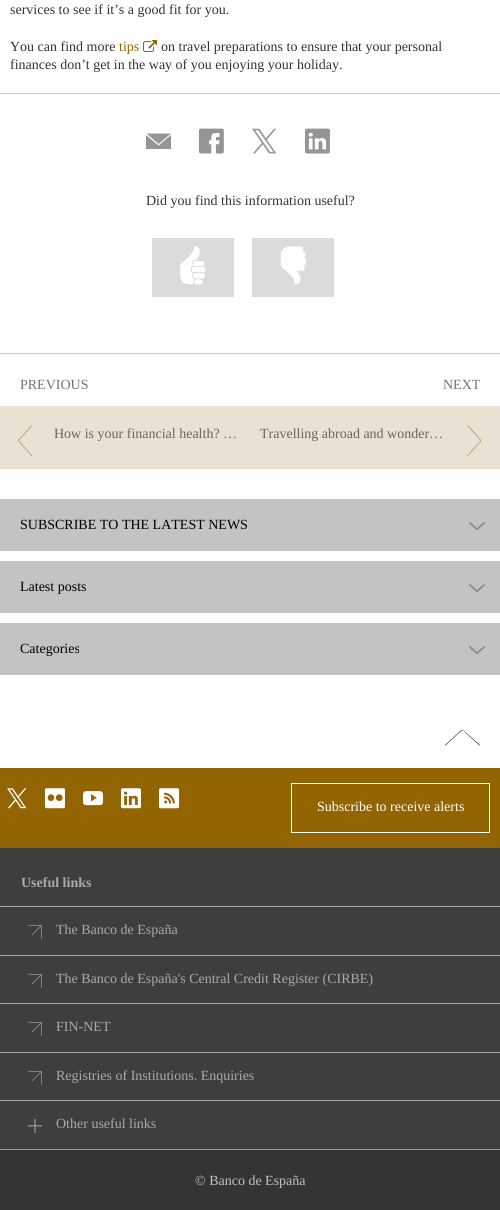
#include <cairo.h>
#include <math.h>
#include <stddef.h>

typedef struct { const char *family; double size; int italic, bold; unsigned color; } style_t;
static cairo_t *ctx;

static void ink(unsigned color) {
    cairo_set_source_rgb(ctx, (color >> 16) / 255.0, (color >> 8 & 255) / 255.0, (color & 255) / 255.0);
}

static void write(double x, double y, const char *s, const style_t *st) {
    cairo_select_font_face(ctx, st->family, st->italic ? CAIRO_FONT_SLANT_ITALIC : CAIRO_FONT_SLANT_NORMAL,
        st->bold ? CAIRO_FONT_WEIGHT_BOLD : CAIRO_FONT_WEIGHT_NORMAL);
    cairo_set_font_size(ctx, st->size);
    ink(st->color);
    cairo_move_to(ctx, x, y);
    cairo_show_text(ctx, s);
}

static void block(double x, double y, double w, double h, unsigned color) {
    ink(color);
    cairo_rectangle(ctx, x, y, w, h);
    cairo_fill(ctx);
}

static void paste(const char *path, double x, double y, double w, double h) {
    cairo_surface_t *image = cairo_image_surface_create_from_png(path);
    cairo_save(ctx);
    cairo_set_source_surface(ctx, image, x, y);
    cairo_rectangle(ctx, x, y, w, h);
    cairo_fill(ctx);
    cairo_restore(ctx);
    cairo_surface_destroy(image);
}

static const style_t s1 = {"Liberation Serif", 14, 0, 0, 0x333333};
static const style_t s2 = {"Liberation Serif", 14, 0, 0, 0x936502};
static const style_t s3 = {"Liberation Serif", 14, 0, 0, 0x737373};
static const style_t s4 = {"Liberation Serif", 14, 0, 0, 0x68655e};
static const style_t s5 = {"Liberation Serif", 14, 0, 0, 0x000000};
static const style_t s6 = {"Liberation Serif", 14, 0, 0, 0xffffff};
static const style_t s7 = {"Liberation Serif", 14, 0, 1, 0xaaaaa9};
static const style_t s8 = {"Liberation Serif", 14, 0, 0, 0xaaaaa9};
static const style_t s9 = {"Liberation Serif", 14, 0, 0, 0xc2c2c2};

int main(void) {
    cairo_surface_t *surface = cairo_image_surface_create(CAIRO_FORMAT_RGB24, 500, 1210);
    ctx = cairo_create(surface);
    cairo_font_options_t *options = cairo_font_options_create();
    cairo_font_options_set_hint_metrics(options, CAIRO_HINT_METRICS_OFF);
    cairo_font_options_set_hint_style(options, CAIRO_HINT_STYLE_NONE);
    cairo_set_font_options(ctx, options);
    cairo_set_miter_limit(ctx, 4);
    ink(0xffffff);
    cairo_paint(ctx);
    write(10, 14, "services to see if it’s a good fit for you.", &s1);
    write(10, 51, "You can find more", &s1);
    write(119, 51, "tips", &s2);
    paste("pic1.png", 143, 40, 14, 12);
    write(161, 51, "on travel preparations to ensure that your personal", &s1);
    write(10, 69, "finances don’t get in the way of you enjoying your holiday.", &s1);
    block(0, 93, 500, 1, 0xcccccc);
    block(0, 353, 500, 1, 0xcccccc);
    ink(0x959595);
    cairo_new_path(ctx);
    cairo_move_to(ctx, 171, 133.5);
    cairo_line_to(ctx, 146.5, 133.5);
    cairo_line_to(ctx, 158.5, 144);
    cairo_close_path(ctx);
    cairo_move_to(ctx, 158.5, 145.5);
    cairo_line_to(ctx, 146, 135);
    cairo_line_to(ctx, 146, 149);
    cairo_line_to(ctx, 171, 149);
    cairo_line_to(ctx, 171, 135);
    cairo_close_path(ctx);
    cairo_fill(ctx);
    paste("pic2.png", 198, 128, 26, 26);
    paste("pic3.png", 252, 128, 25, 26);
    paste("pic4.png", 305, 128, 25, 26);
    write(146, 205, "Did you find this information useful?", &s1);
    block(152, 238, 82, 59, 0xdcdbdb);
    paste("pic5.png", 180, 246, 26, 39);
    block(252, 238, 82, 59, 0xdcdbdb);
    paste("pic6.png", 280, 246, 26, 39);
    block(0, 406, 500, 63, 0xe9e2d2);
    write(20, 389, "PREVIOUS", &s3);
    paste("pic7.png", 18, 425, 14, 31);
    write(54, 438, "How is your financial health? …", &s4);
    write(443, 389, "NEXT", &s3);
    write(260, 438, "Travelling abroad and wonder…", &s4);
    paste("pic8.png", 467, 425, 14, 31);
    block(0, 499, 500, 52, 0xc4c2c2);
    write(20, 529, "SUBSCRIBE TO THE LATEST NEWS", &s5);
    paste("pic9.png", 469, 522, 16, 8);
    block(0, 561, 500, 52, 0xc4c2c2);
    write(20, 591, "Latest posts", &s5);
    paste("pic9.png", 469, 584, 16, 8);
    block(0, 623, 500, 52, 0xc4c2c2);
    write(20, 653, "Categories", &s5);
    paste("pic9.png", 469, 646, 16, 8);
    ink(0x343432);
    cairo_new_path(ctx);
    cairo_move_to(ctx, 480, 745);
    cairo_line_to(ctx, 466, 732.5);
    cairo_curve_to(ctx, 461, 728, 462.5, 729.5, 456, 735);
    cairo_line_to(ctx, 445, 745);
    cairo_line_to(ctx, 445.5, 745.5);
    cairo_line_to(ctx, 459, 733);
    cairo_curve_to(ctx, 464, 728.5, 462, 730, 468.5, 735.5);
    cairo_line_to(ctx, 479.5, 745.5);
    cairo_close_path(ctx);
    cairo_fill(ctx);
    block(0, 768, 500, 80, 0x936502);
    paste("pic10.png", 7, 788, 20, 21);
    paste("pic11.png", 45, 788, 20, 21);
    paste("pic12.png", 83, 791, 20, 15);
    paste("pic13.png", 121, 788, 20, 21);
    paste("pic14.png", 159, 788, 21, 21);
    cairo_rectangle(ctx, 291.5, 783.5, 198, 49);
    ink(0xffffff);
    cairo_set_line_width(ctx, 1);
    cairo_stroke(ctx);
    write(317, 811, "Subscribe to receive alerts", &s6);
    block(0, 1149, 500, 1, 0x999999);
    block(0, 848, 500, 301, 0x3e3e3c);
    write(21, 887, "Useful links", &s7);
    block(0, 906, 500, 1, 0xaaaaa9);
    paste("pic15.png", 28, 924, 14, 15);
    write(56, 934, "The Banco de España", &s8);
    block(0, 955, 500, 1, 0xaaaaa9);
    paste("pic15.png", 28, 973, 14, 15);
    write(56, 983, "The Banco de España's Central Credit Register (CIRBE)", &s8);
    block(0, 1003, 500, 1, 0xaaaaa9);
    paste("pic15.png", 28, 1021, 14, 15);
    write(56, 1031, "FIN-NET", &s8);
    block(0, 1052, 500, 1, 0xaaaaa9);
    paste("pic15.png", 28, 1070, 14, 15);
    write(56, 1080, "Registries of Institutions. Enquiries", &s8);
    block(0, 1100, 500, 1, 0xaaaaa9);
    paste("pic16.png", 28, 1118, 14, 15);
    write(56, 1128, "Other useful links", &s8);
    block(0, 1150, 500, 60, 0x343432);
    write(195, 1185, "© Banco de España", &s9);
    cairo_surface_write_to_png(surface, "screenshot.png");
    cairo_font_options_destroy(options);
    cairo_destroy(ctx);
    cairo_surface_destroy(surface);
    return 0;
}
